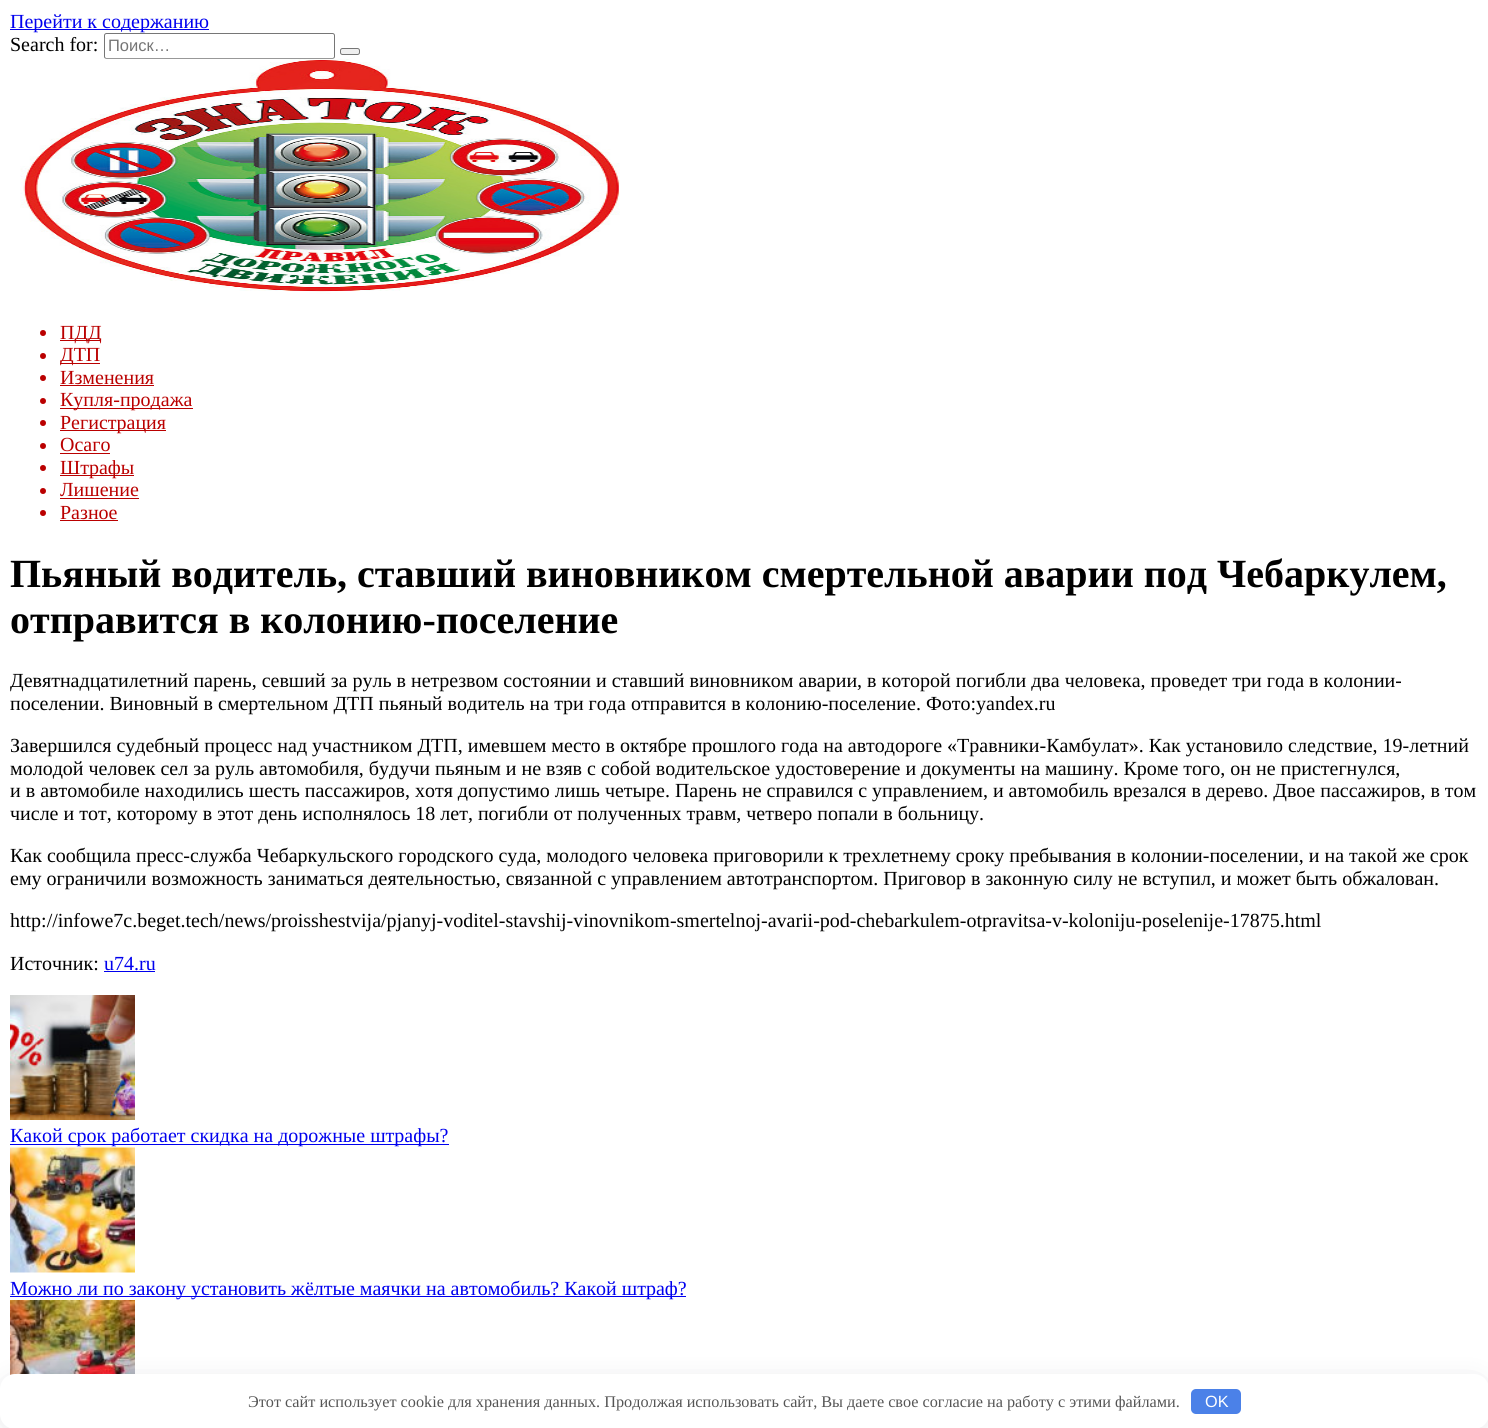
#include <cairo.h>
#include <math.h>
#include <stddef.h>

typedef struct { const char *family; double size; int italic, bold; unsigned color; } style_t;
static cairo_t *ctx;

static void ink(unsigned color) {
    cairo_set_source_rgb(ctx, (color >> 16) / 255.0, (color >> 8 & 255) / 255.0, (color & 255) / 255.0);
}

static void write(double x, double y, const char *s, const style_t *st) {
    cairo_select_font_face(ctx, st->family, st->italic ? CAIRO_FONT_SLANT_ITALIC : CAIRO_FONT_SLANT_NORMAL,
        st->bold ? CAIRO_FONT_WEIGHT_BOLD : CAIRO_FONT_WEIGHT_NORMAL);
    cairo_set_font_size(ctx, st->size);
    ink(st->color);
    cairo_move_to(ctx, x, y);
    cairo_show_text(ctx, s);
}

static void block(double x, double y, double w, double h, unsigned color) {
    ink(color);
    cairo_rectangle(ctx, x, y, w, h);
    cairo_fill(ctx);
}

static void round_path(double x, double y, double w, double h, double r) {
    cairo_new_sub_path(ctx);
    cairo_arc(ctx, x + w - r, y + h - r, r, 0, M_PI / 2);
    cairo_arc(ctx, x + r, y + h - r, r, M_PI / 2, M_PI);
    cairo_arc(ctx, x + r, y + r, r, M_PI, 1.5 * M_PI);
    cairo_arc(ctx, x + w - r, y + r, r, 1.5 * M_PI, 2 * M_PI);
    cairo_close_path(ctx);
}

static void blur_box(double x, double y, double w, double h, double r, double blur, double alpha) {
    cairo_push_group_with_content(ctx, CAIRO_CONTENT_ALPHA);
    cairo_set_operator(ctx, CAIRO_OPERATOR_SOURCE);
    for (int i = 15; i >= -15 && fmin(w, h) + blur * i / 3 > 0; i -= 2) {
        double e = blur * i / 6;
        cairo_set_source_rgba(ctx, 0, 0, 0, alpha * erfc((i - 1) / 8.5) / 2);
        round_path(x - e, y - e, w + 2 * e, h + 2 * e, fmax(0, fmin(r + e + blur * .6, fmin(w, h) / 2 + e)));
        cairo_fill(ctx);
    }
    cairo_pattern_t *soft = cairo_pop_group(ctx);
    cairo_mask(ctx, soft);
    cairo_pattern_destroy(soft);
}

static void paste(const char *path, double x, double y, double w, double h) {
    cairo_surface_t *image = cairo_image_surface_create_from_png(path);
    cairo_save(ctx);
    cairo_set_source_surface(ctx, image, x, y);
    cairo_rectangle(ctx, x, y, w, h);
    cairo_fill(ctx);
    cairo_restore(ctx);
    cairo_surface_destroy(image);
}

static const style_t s1 = {"Liberation Serif", 20, 0, 0, 0x0000ee};
static const style_t s2 = {"Liberation Serif", 20, 0, 0, 0x000000};
static const style_t s3 = {"Liberation Sans", 16.5, 0, 0, 0x757575};
static const style_t s4 = {"Liberation Serif", 20, 0, 0, 0xba0000};
static const style_t s5 = {"Liberation Serif", 40, 0, 1, 0x000000};
static const style_t s6 = {"Liberation Serif", 16.25, 0, 0, 0x555555};
static const style_t s7 = {"Liberation Sans", 16.25, 0, 0, 0xffffff};

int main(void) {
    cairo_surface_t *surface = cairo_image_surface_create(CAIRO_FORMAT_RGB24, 1488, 1428);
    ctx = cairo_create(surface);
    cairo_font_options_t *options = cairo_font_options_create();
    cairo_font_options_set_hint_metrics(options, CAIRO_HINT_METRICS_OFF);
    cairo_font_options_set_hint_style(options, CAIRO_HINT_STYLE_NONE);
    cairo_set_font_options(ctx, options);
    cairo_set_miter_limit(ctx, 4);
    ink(0xffffff);
    cairo_paint(ctx);
    block(10, 29, 199, 1, 0x0000ee);
    write(10, 28, "Перейти к содержанию", &s1);
    write(10, 51, "Search for:", &s2);
    round_path(104.5, 33.5, 230, 25, 2);
    ink(0x767676);
    cairo_set_line_width(ctx, 1);
    cairo_stroke(ctx);
    write(108, 51, "Поиск…", &s3);
    ink(0xefefef);
    round_path(340.5, 48.5, 19, 6, 2);
    cairo_fill_preserve(ctx);
    ink(0x767676);
    cairo_stroke(ctx);
    paste("pic1.png", 20, 58, 600, 236);
    ink(0xba0000);
    cairo_arc(ctx, 43, 333, 3, 0, 2 * M_PI);
    cairo_fill(ctx);
    block(60, 340, 41, 1, 0xba0000);
    write(60, 339, "ПДД", &s4);
    cairo_new_path(ctx);
    cairo_arc(ctx, 43, 356, 3, 0, 2 * M_PI);
    cairo_fill(ctx);
    block(60, 363, 40, 1, 0xba0000);
    write(60, 361, "ДТП", &s4);
    cairo_new_path(ctx);
    cairo_arc(ctx, 43, 378, 3, 0, 2 * M_PI);
    cairo_fill(ctx);
    write(60, 384, "Изменения", &s4);
    block(60, 385, 94, 1, 0xba0000);
    cairo_new_path(ctx);
    cairo_arc(ctx, 43, 401, 3, 0, 2 * M_PI);
    cairo_fill(ctx);
    block(60, 408, 133, 1, 0xba0000);
    write(60, 406, "Купля-продажа", &s4);
    cairo_new_path(ctx);
    cairo_arc(ctx, 43, 423, 3, 0, 2 * M_PI);
    cairo_fill(ctx);
    block(60, 430, 106, 1, 0xba0000);
    write(60, 429, "Регистрация", &s4);
    cairo_new_path(ctx);
    cairo_arc(ctx, 43, 446, 3, 0, 2 * M_PI);
    cairo_fill(ctx);
    write(60, 451, "Осаго", &s4);
    block(60, 453, 50, 1, 0xba0000);
    cairo_new_path(ctx);
    cairo_arc(ctx, 43, 468, 3, 0, 2 * M_PI);
    cairo_fill(ctx);
    block(60, 475, 74, 1, 0xba0000);
    write(60, 474, "Штрафы", &s4);
    cairo_new_path(ctx);
    cairo_arc(ctx, 43, 491, 3, 0, 2 * M_PI);
    cairo_fill(ctx);
    write(60, 496, "Лишение", &s4);
    block(60, 498, 79, 1, 0xba0000);
    cairo_new_path(ctx);
    cairo_arc(ctx, 43, 513, 3, 0, 2 * M_PI);
    cairo_fill(ctx);
    write(60, 519, "Разное", &s4);
    block(60, 520, 58, 1, 0xba0000);
    write(10, 587, "Пьяный водитель, ставший виновником смертельной аварии под Чебаркулем,", &s5);
    write(10, 633, "отправится в колонию-поселение", &s5);
    write(10, 687, "Девятнадцатилетний парень, севший за руль в нетрезвом состоянии и ставший виновником аварии, в которой погибли два человека, проведет три года в колонии-", &s2);
    write(10, 710, "поселении. Виновный в смертельном ДТП пьяный водитель на три года отправится в колонию-поселение. Фото:yandex.ru", &s2);
    write(10, 752, "Завершился судебный процесс над участником ДТП, имевшем место в октябре прошлого года на автодороге «Травники-Камбулат». Как установило следствие, 19-летний", &s2);
    write(10, 775, "молодой человек сел за руль автомобиля, будучи пьяным и не взяв с собой водительское удостоверение и документы на машину. Кроме того, он не пристегнулся,", &s2);
    write(10, 797, "и в автомобиле находились шесть пассажиров, хотя допустимо лишь четыре. Парень не справился с управлением, и автомобиль врезался в дерево. Двое пассажиров, в том", &s2);
    write(10, 820, "числе и тот, которому в этот день исполнялось 18 лет, погибли от полученных травм, четверо попали в больницу.", &s2);
    write(10, 862, "Как сообщила пресс-служба Чебаркульского городского суда, молодого человека приговорили к трехлетнему сроку пребывания в колонии-поселении, и на такой же срок", &s2);
    write(10, 885, "ему ограничили возможность заниматься деятельностью, связанной с управлением автотранспортом. Приговор в законную силу не вступил, и может быть обжалован.", &s2);
    write(10, 927, "http://infowe7c.beget.tech/news/proisshestvija/pjanyj-voditel-stavshij-vinovnikom-smertelnoj-avarii-pod-chebarkulem-otpravitsa-v-koloniju-poselenije-17875.html", &s2);
    write(10, 970, "Источник:", &s2);
    write(104, 970, "u74.ru", &s1);
    block(104, 971, 51, 1, 0x0000ee);
    paste("pic2.png", 10, 995, 125, 125);
    block(10, 1144, 439, 1, 0x0000ee);
    write(10, 1142, "Какой срок работает скидка на дорожные штрафы?", &s1);
    paste("pic3.png", 10, 1147, 125, 126);
    block(10, 1296, 676, 1, 0x0000ee);
    write(10, 1295, "Можно ли по закону установить жёлтые маячки на автомобиль? Какой штраф?", &s1);
    paste("pic4.png", 10, 1300, 125, 75);
    ink(0x292c38);
    blur_box(6, 1384, 1477, 42, 9, 12.5, 0.2);
    ink(0xffffff);
    round_path(0, 1374, 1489, 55, 15);
    cairo_fill(ctx);
    write(248, 1407, "Этот сайт использует cookie для хранения данных. Продолжая использовать сайт, Вы даете свое согласие на работу с этими файлами.", &s6);
    ink(0x4b81e8);
    round_path(1191, 1389, 50, 25, 5);
    cairo_fill(ctx);
    write(1205, 1407, "OK", &s7);
    cairo_surface_write_to_png(surface, "screenshot.png");
    cairo_font_options_destroy(options);
    cairo_destroy(ctx);
    cairo_surface_destroy(surface);
    return 0;
}
